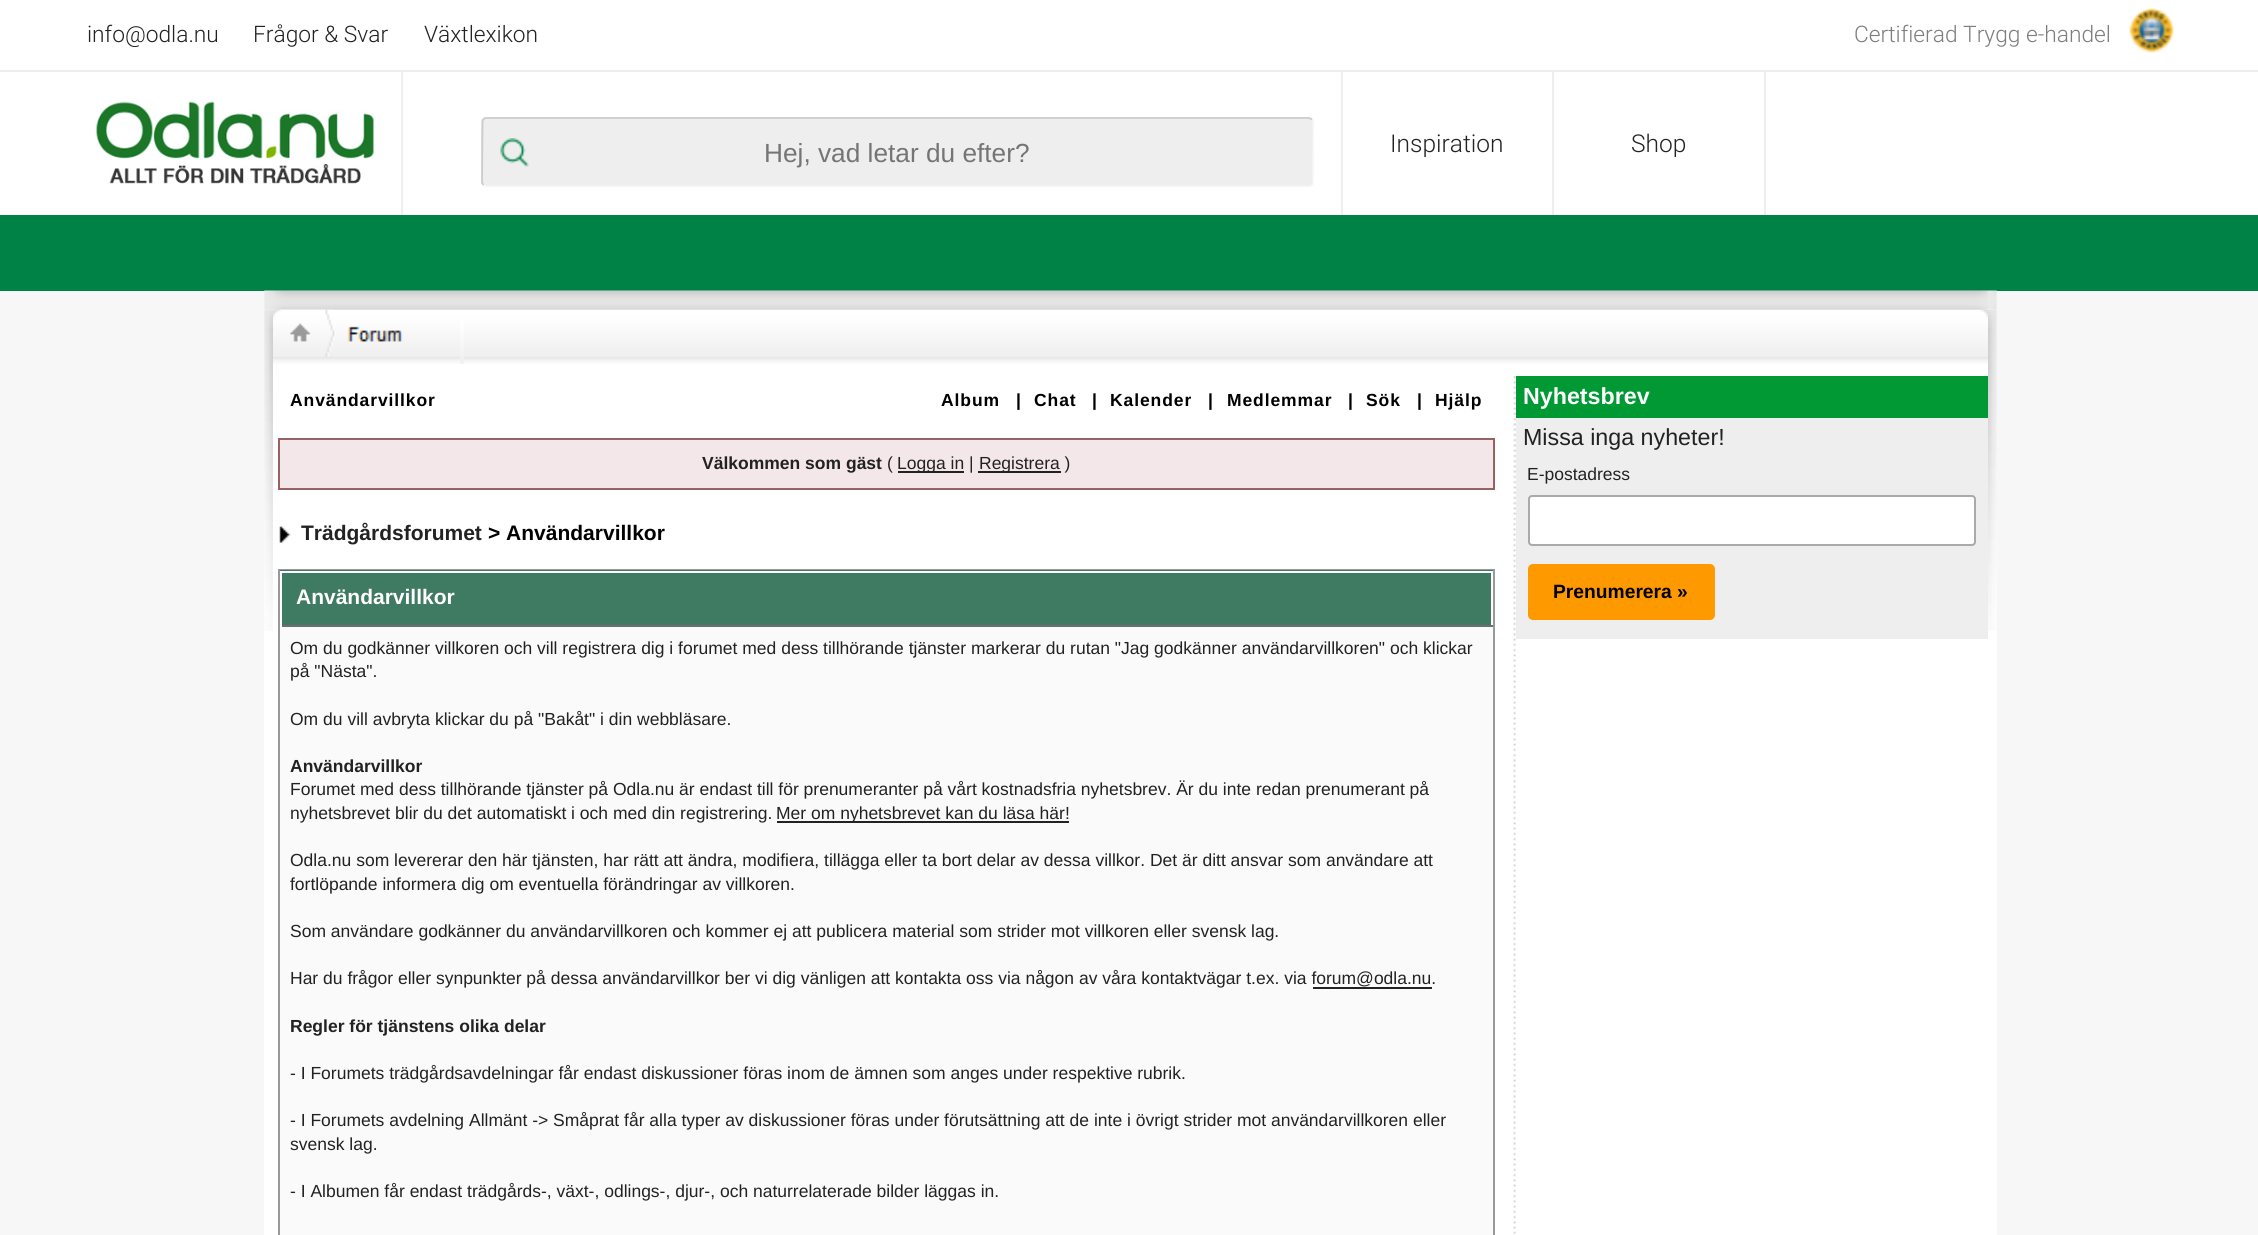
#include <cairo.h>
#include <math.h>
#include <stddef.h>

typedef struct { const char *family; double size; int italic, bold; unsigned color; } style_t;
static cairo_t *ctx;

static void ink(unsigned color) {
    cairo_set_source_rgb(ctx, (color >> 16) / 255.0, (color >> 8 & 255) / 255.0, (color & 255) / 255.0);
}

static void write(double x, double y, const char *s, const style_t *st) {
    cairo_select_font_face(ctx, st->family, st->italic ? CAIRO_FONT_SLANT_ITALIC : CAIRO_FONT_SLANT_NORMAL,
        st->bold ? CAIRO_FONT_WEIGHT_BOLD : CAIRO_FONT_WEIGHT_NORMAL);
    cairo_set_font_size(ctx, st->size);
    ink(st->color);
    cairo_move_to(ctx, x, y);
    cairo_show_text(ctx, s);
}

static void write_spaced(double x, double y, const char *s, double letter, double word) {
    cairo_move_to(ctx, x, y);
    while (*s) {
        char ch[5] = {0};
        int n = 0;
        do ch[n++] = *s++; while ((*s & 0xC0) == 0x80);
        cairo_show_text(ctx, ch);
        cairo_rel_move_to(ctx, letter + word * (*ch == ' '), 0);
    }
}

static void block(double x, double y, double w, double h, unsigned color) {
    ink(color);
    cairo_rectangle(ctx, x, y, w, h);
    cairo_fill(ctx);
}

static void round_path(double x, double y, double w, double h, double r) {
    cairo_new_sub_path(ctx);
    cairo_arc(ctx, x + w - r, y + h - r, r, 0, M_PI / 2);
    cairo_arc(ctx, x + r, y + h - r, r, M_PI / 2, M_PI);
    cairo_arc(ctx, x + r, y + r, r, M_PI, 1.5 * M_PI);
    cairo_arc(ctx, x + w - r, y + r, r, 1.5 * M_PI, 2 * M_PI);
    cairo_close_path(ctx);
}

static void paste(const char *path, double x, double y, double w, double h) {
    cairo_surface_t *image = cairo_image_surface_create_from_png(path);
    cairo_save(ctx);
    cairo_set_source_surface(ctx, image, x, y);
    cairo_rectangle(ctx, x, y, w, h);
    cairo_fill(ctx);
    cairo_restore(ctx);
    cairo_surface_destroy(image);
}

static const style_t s1 = {"Roboto Light", 22.75, 0, 0, 0x222222};
static const style_t s2 = {"Roboto Light", 22.75, 0, 0, 0x7e7e7e};
static const style_t s3 = {"Liberation Sans", 26.25, 0, 0, 0x757575};
static const style_t s4 = {"Roboto Light", 24.5, 0, 0, 0x222222};
static const style_t s5 = {"Liberation Sans", 17.5, 0, 1, 0x222222};
static const style_t s6 = {"Liberation Sans", 17.5, 0, 0, 0x222222};
static const style_t s7 = {"Liberation Sans", 21, 0, 1, 0x222222};
static const style_t s8 = {"Liberation Sans", 21, 0, 1, 0x000000};
static const style_t s9 = {"Liberation Sans", 21, 0, 1, 0xffffff};
static const style_t s10 = {"Liberation Sans", 23.25, 0, 1, 0xffffff};
static const style_t s11 = {"Liberation Sans", 23.25, 0, 0, 0x222222};
static const style_t s12 = {"Liberation Sans", 19.25, 0, 1, 0x000000};

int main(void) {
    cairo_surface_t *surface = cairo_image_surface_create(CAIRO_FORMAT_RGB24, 2258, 1235);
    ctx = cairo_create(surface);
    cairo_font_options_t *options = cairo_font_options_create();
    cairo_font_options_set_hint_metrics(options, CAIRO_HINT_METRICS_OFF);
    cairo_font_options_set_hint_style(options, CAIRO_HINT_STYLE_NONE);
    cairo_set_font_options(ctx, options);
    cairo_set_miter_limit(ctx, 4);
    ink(0xf7f7f7);
    cairo_paint(ctx);
    block(0, 0, 2258, 215, 0xffffff);
    block(0, 70, 2258, 2, 0xeeeeee);
    write(87, 42, "info@odla.nu", &s1);
    write(253, 42, "Frågor & Svar", &s1);
    write(424, 42, "Växtlexikon", &s1);
    write(1854, 42, "Certifierad Trygg e-handel", &s2);
    paste("pic1.png", 2129, 8, 45, 45);
    block(1341, 72, 2, 143, 0xeeeeee);
    block(401, 72, 2, 143, 0xeeeeee);
    paste("pic2.png", 96, 101, 279, 83);
    round_path(481, 117, 833, 70, 5);
    cairo_fill(ctx);
    paste("pic3.png", 500, 138, 29, 29);
    cairo_new_path(ctx);
    cairo_move_to(ctx, 1312, 119.5);
    cairo_line_to(ctx, 1313.5, 122);
    cairo_line_to(ctx, 1313, 183.5);
    cairo_curve_to(ctx, 1312.5, 185, 1311.5, 186, 1310, 186.5);
    cairo_line_to(ctx, 486.5, 186.5);
    cairo_line_to(ctx, 483.5, 185);
    cairo_set_source_rgba(ctx, 1, 1, 1, 0.5);
    cairo_set_line_width(ctx, 1.8);
    cairo_stroke(ctx);
    cairo_new_path(ctx);
    cairo_move_to(ctx, 483.5, 185);
    cairo_line_to(ctx, 482, 182.5);
    cairo_line_to(ctx, 482.5, 121);
    cairo_curve_to(ctx, 483, 119.5, 484, 118.5, 485.5, 118);
    cairo_line_to(ctx, 1309, 118);
    cairo_line_to(ctx, 1312, 119.5);
    cairo_set_source_rgba(ctx, 0.667, 0.667, 0.667, 0.5);
    cairo_stroke(ctx);
    write(764, 162, "Hej, vad letar du efter?", &s3);
    block(1552, 72, 2, 143, 0xeeeeee);
    write(1390, 152, "Inspiration", &s4);
    block(1764, 72, 2, 143, 0xeeeeee);
    write(1631, 152, "Shop", &s4);
    block(0, 215, 2258, 76, 0x008146);
    block(264, 291, 1733, 944, 0xffffff);
    paste("pic4.png", 264, 290, 9, 20);
    paste("pic8.png", 273, 309, 1715, 55);
    paste("pic5.png", 273, 290, 1715, 20);
    paste("pic6.png", 1988, 290, 9, 20);
    paste("pic7.png", 264, 310, 9, 321);
    paste("pic9.png", 280, 309, 55, 48);
    paste("pic10.png", 1988, 310, 9, 321);
    cairo_select_font_face(ctx, "Liberation Sans", CAIRO_FONT_SLANT_NORMAL, CAIRO_FONT_WEIGHT_BOLD);
    cairo_set_font_size(ctx, 17.5);
    ink(0x000000);
    write_spaced(290, 406, "Användarvillkor", 0.9, 0);
    write_spaced(941, 406, "Album", 0.9, 0);
    write_spaced(1016, 406, "|", 0.9, 0);
    write_spaced(1034, 406, "Chat", 0.9, 0);
    write_spaced(1092, 406, "|", 0.9, 0);
    write_spaced(1110, 406, "Kalender", 0.9, 0);
    write_spaced(1208, 406, "|", 0.9, 0);
    write_spaced(1227, 406, "Medlemmar", 0.9, 0);
    write_spaced(1348, 406, "|", 0.9, 0);
    write_spaced(1366, 406, "Sök", 0.9, 0);
    write_spaced(1417, 406, "|", 0.9, 0);
    write_spaced(1435, 406, "Hjälp", 0.9, 0);
    ink(0xf4e7ea);
    cairo_rectangle(ctx, 279, 439, 1215, 50);
    cairo_fill_preserve(ctx);
    ink(0x986265);
    cairo_set_line_width(ctx, 2);
    cairo_stroke(ctx);
    write(702, 469, "Välkommen som gäst", &s5);
    write(887, 469, "(", &s6);
    block(898, 471, 66, 2, 0x222222);
    write(897, 469, "Logga in |", &s6);
    block(978, 471, 83, 2, 0x222222);
    write(979, 469, "Registrera )", &s6);
    paste("pic11.png", 279, 526, 12, 17);
    write(301, 540, "Trädgårdsforumet", &s7);
    write(488, 540, "> Användarvillkor", &s8);
    cairo_rectangle(ctx, 279, 570, 1215, 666);
    ink(0x999999);
    cairo_stroke(ctx);
    block(280, 570, 1213, 55, 0x3f7b63);
    block(280, 571, 1213, 2, 0xffffff);
    block(1491, 571, 2, 56, 0xffffff);
    block(280, 625, 1213, 2, 0x6e6e6e);
    block(280, 571, 2, 56, 0xffffff);
    write(296, 604, "Användarvillkor", &s9);
    block(280, 627, 1213, 608, 0xfafafa);
    write(290, 654, "Om du godkänner villkoren och vill registrera dig i forumet med dess tillhörande tjänster markerar du rutan \"Jag godkänner användarvillkoren\" och klickar", &s6);
    write(290, 677, "på \"Nästa\".", &s6);
    write(290, 725, "Om du vill avbryta klickar du på \"Bakåt\" i din webbläsare.", &s6);
    write(290, 772, "Användarvillkor", &s5);
    write(290, 795, "Forumet med dess tillhörande tjänster på Odla.nu är endast till för prenumeranter på vårt kostnadsfria nyhetsbrev. Är du inte redan prenumerant på", &s6);
    write(290, 819, "nyhetsbrevet blir du det automatiskt i och med din registrering.", &s6);
    block(777, 821, 292, 2, 0x222222);
    write(776, 819, "Mer om nyhetsbrevet kan du läsa här!", &s6);
    write(290, 866, "Odla.nu som levererar den här tjänsten, har rätt att ändra, modifiera, tillägga eller ta bort delar av dessa villkor. Det är ditt ansvar som användare att", &s6);
    write(290, 890, "fortlöpande informera dig om eventuella förändringar av villkoren.", &s6);
    write(290, 937, "Som användare godkänner du användarvillkoren och kommer ej att publicera material som strider mot villkoren eller svensk lag.", &s6);
    write(290, 984, "Har du frågor eller synpunkter på dessa användarvillkor ber vi dig vänligen att kontakta oss via någon av våra kontaktvägar t.ex. via forum@odla.nu.", &s6);
    block(1313, 987, 119, 2, 0x222222);
    write(290, 1032, "Regler för tjänstens olika delar", &s5);
    write(290, 1079, "- I Forumets trädgårdsavdelningar får endast diskussioner föras inom de ämnen som anges under respektive rubrik.", &s6);
    write(290, 1126, "- I Forumets avdelning Allmänt -> Småprat får alla typer av diskussioner föras under förutsättning att de inte i övrigt strider mot användarvillkoren eller", &s6);
    write(290, 1150, "svensk lag.", &s6);
    write(290, 1197, "- I Albumen får endast trädgårds-, växt-, odlings-, djur-, och naturrelaterade bilder läggas in.", &s6);
    paste("pic12.png", 1513, 376, 3, 858);
    paste("pic13.png", 1513, 376, 3, 142);
    block(1516, 418, 472, 221, 0xeeeeee);
    block(1516, 376, 472, 42, 0x009933);
    write(1523, 404, "Nyhetsbrev", &s10);
    write(1523, 445, "Missa inga nyheter!", &s11);
    write(1527, 480, "E-postadress", &s6);
    ink(0xffffff);
    round_path(1529, 496, 446, 49, 3);
    cairo_fill_preserve(ctx);
    ink(0xaaaaaa);
    cairo_stroke(ctx);
    ink(0xff9900);
    round_path(1528, 564, 187, 56, 5);
    cairo_fill(ctx);
    write(1553, 598, "Prenumerera »", &s12);
    cairo_surface_write_to_png(surface, "screenshot.png");
    cairo_font_options_destroy(options);
    cairo_destroy(ctx);
    cairo_surface_destroy(surface);
    return 0;
}
